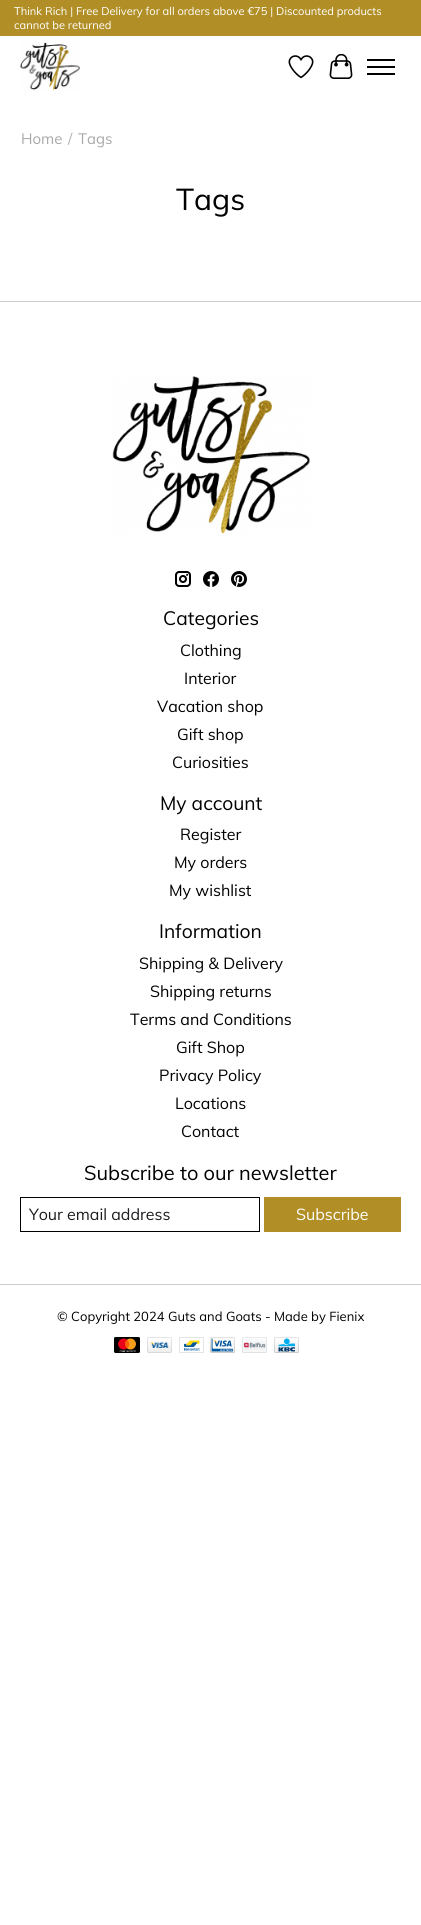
#include <cairo.h>
#include <math.h>
#include <stddef.h>

typedef struct { const char *family; double size; int italic, bold; unsigned color; } style_t;
static cairo_t *ctx;

static void ink(unsigned color) {
    cairo_set_source_rgb(ctx, (color >> 16) / 255.0, (color >> 8 & 255) / 255.0, (color & 255) / 255.0);
}

static void write(double x, double y, const char *s, const style_t *st) {
    cairo_select_font_face(ctx, st->family, st->italic ? CAIRO_FONT_SLANT_ITALIC : CAIRO_FONT_SLANT_NORMAL,
        st->bold ? CAIRO_FONT_WEIGHT_BOLD : CAIRO_FONT_WEIGHT_NORMAL);
    cairo_set_font_size(ctx, st->size);
    ink(st->color);
    cairo_move_to(ctx, x, y);
    cairo_show_text(ctx, s);
}

static void block(double x, double y, double w, double h, unsigned color) {
    ink(color);
    cairo_rectangle(ctx, x, y, w, h);
    cairo_fill(ctx);
}

static void paste(const char *path, double x, double y, double w, double h) {
    cairo_surface_t *image = cairo_image_surface_create_from_png(path);
    cairo_save(ctx);
    cairo_set_source_surface(ctx, image, x, y);
    cairo_rectangle(ctx, x, y, w, h);
    cairo_fill(ctx);
    cairo_restore(ctx);
    cairo_surface_destroy(image);
}

static const style_t s1 = {"Muli", 11.1, 0, 0, 0xffffff};
static const style_t s2 = {"Muli", 15, 0, 0, 0xa9a9a9};
static const style_t s3 = {"Muli", 15, 0, 0, 0xb3b3b3};
static const style_t s4 = {"Muli", 30, 0, 0, 0x000000};
static const style_t s5 = {"Muli", 19.25, 0, 0, 0x000000};
static const style_t s6 = {"Muli", 16, 0, 0, 0x000000};
static const style_t s7 = {"Muli", 20, 0, 0, 0x000000};
static const style_t s8 = {"Muli", 16, 0, 0, 0x1c1c21};
static const style_t s9 = {"Muli", 16, 0, 0, 0xffffff};
static const style_t s10 = {"Muli", 13, 0, 0, 0x000000};

int main(void) {
    cairo_surface_t *surface = cairo_image_surface_create(CAIRO_FORMAT_RGB24, 421, 1925);
    ctx = cairo_create(surface);
    cairo_font_options_t *options = cairo_font_options_create();
    cairo_font_options_set_hint_metrics(options, CAIRO_HINT_METRICS_OFF);
    cairo_font_options_set_hint_style(options, CAIRO_HINT_STYLE_NONE);
    cairo_set_font_options(ctx, options);
    cairo_set_miter_limit(ctx, 4);
    ink(0xffffff);
    cairo_paint(ctx);
    block(0, 0, 421, 36, 0xb18f26);
    write(14, 15, "Think Rich | Free Delivery for all orders above €75 | Discounted products", &s1);
    write(14, 29, "cannot be returned", &s1);
    paste("pic1.png", 20, 42, 60, 49);
    paste("pic2.png", 288, 55, 26, 24);
    paste("pic3.png", 329, 54, 24, 25);
    block(367, 66, 28, 2, 0x000000);
    block(367, 59, 28, 2, 0x000000);
    block(367, 73, 28, 2, 0x000000);
    write(21, 144, "Home", &s2);
    write(68, 144, "/", &s3);
    write(78, 144, "Tags", &s2);
    write(176, 210, "Tags", &s4);
    block(0, 301, 421, 1, 0xcccccc);
    paste("pic4.png", 112, 376, 199, 158);
    paste("pic5.png", 175, 571, 16, 16);
    paste("pic6.png", 203, 571, 16, 16);
    paste("pic7.png", 231, 571, 16, 16);
    write(163, 625, "Categories", &s5);
    write(180, 656, "Clothing", &s6);
    write(184, 684, "Interior", &s6);
    write(157, 712, "Vacation shop", &s6);
    write(177, 740, "Gift shop", &s6);
    write(172, 768, "Curiosities", &s6);
    write(160, 810, "My account", &s5);
    write(180, 840, "Register", &s6);
    write(174, 868, "My orders", &s6);
    write(169, 896, "My wishlist", &s6);
    write(159, 938, "Information", &s5);
    write(139, 969, "Shipping & Delivery", &s6);
    write(150, 997, "Shipping returns", &s6);
    write(130, 1025, "Terms and Conditions", &s6);
    write(176, 1053, "Gift Shop", &s6);
    write(159, 1081, "Privacy Policy", &s6);
    write(175, 1109, "Locations", &s6);
    write(181, 1137, "Contact", &s6);
    write(84, 1180, "Subscribe to our newsletter", &s7);
    cairo_rectangle(ctx, 20.5, 1197.5, 239, 34);
    cairo_set_line_width(ctx, 1);
    cairo_stroke(ctx);
    write(29, 1220, "Your email address", &s8);
    block(264, 1197, 137, 35, 0xb18f26);
    write(296, 1220, "Subscribe", &s9);
    block(0, 1284, 421, 1, 0xcccccc);
    write(57, 1321, "© Copyright 2024 Guts and Goats - Made by Fienix", &s10);
    paste("pic8.png", 114, 1337, 26, 16);
    paste("pic9.png", 147, 1337, 25, 16);
    paste("pic10.png", 179, 1337, 25, 16);
    paste("pic11.png", 210, 1337, 25, 16);
    paste("pic12.png", 242, 1337, 25, 16);
    paste("pic13.png", 274, 1337, 25, 16);
    cairo_surface_write_to_png(surface, "screenshot.png");
    cairo_font_options_destroy(options);
    cairo_destroy(ctx);
    cairo_surface_destroy(surface);
    return 0;
}
